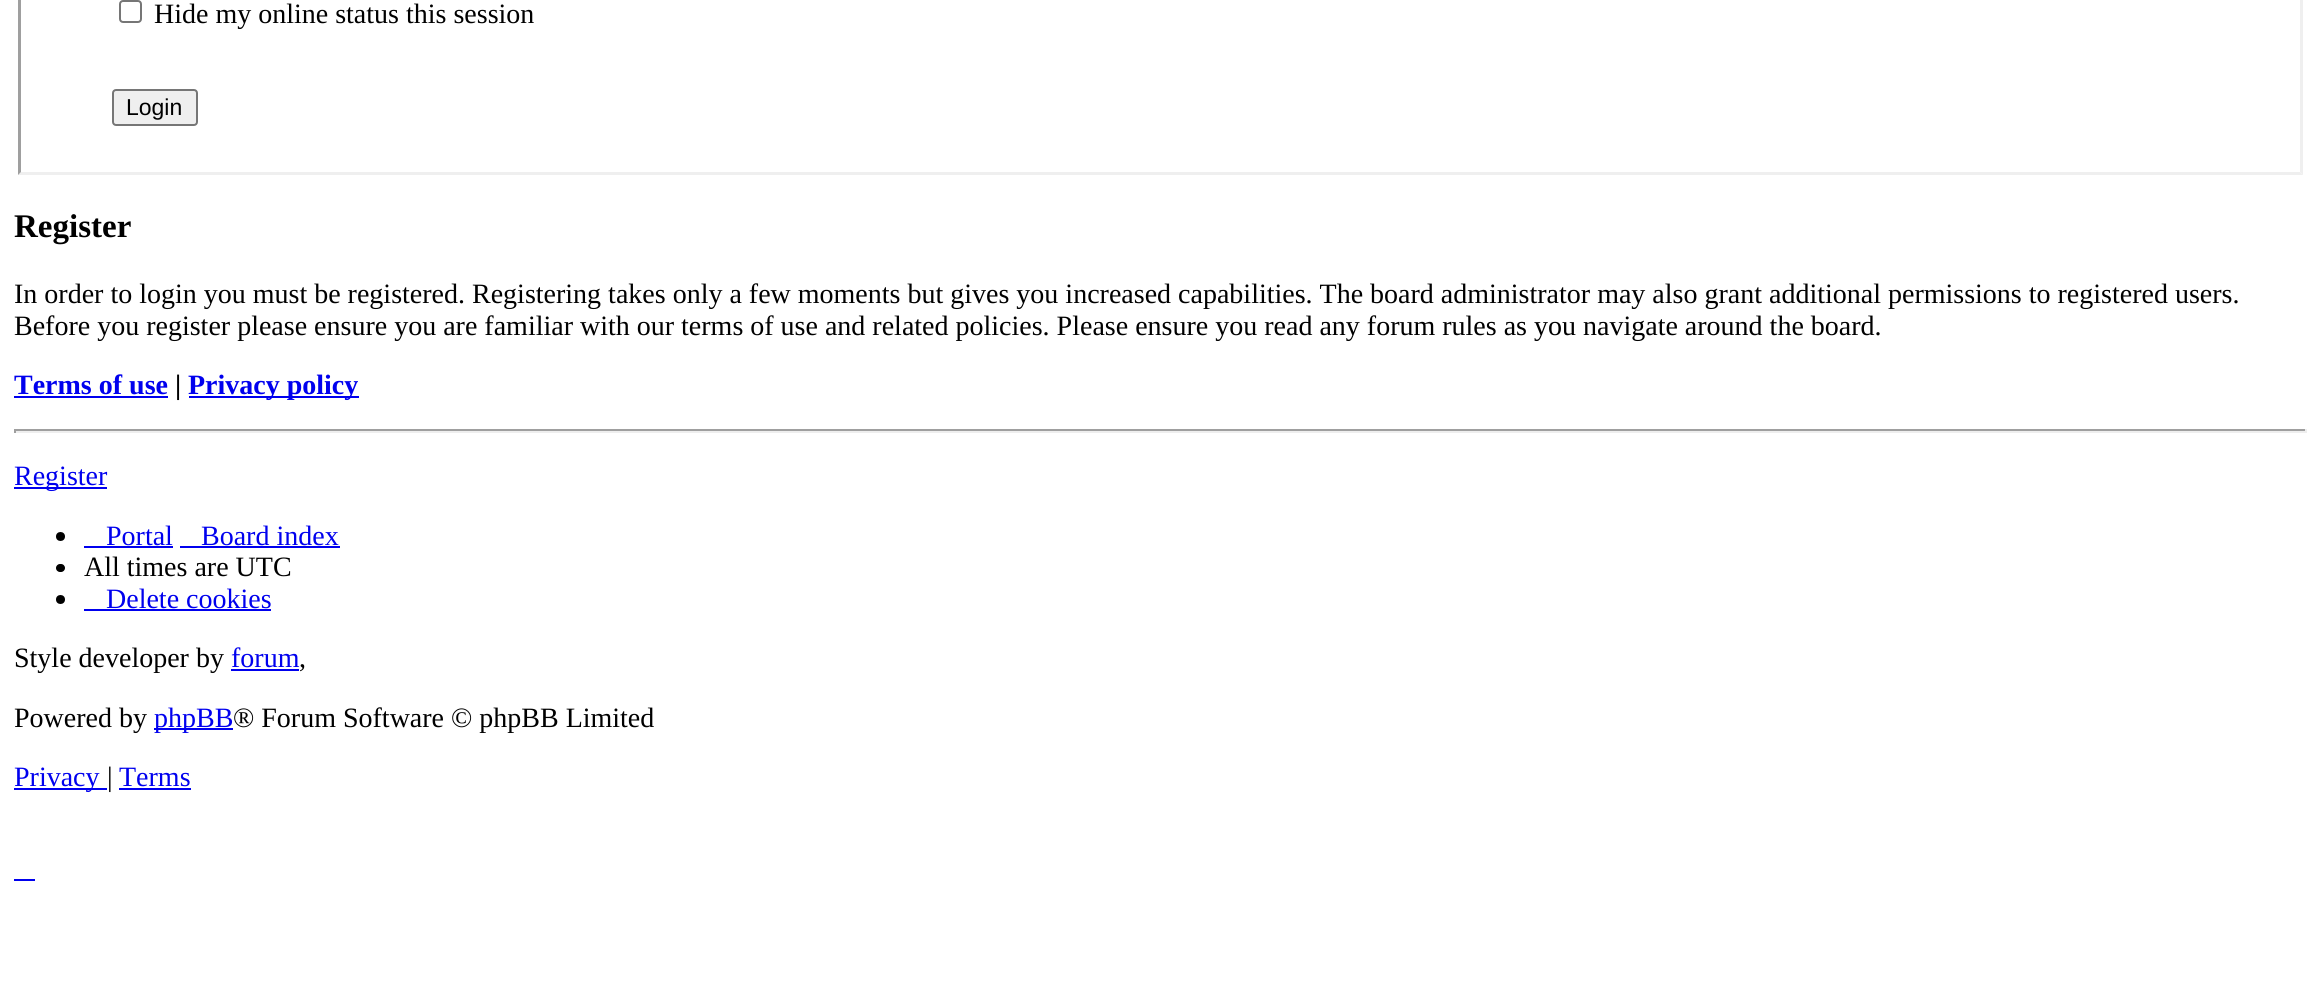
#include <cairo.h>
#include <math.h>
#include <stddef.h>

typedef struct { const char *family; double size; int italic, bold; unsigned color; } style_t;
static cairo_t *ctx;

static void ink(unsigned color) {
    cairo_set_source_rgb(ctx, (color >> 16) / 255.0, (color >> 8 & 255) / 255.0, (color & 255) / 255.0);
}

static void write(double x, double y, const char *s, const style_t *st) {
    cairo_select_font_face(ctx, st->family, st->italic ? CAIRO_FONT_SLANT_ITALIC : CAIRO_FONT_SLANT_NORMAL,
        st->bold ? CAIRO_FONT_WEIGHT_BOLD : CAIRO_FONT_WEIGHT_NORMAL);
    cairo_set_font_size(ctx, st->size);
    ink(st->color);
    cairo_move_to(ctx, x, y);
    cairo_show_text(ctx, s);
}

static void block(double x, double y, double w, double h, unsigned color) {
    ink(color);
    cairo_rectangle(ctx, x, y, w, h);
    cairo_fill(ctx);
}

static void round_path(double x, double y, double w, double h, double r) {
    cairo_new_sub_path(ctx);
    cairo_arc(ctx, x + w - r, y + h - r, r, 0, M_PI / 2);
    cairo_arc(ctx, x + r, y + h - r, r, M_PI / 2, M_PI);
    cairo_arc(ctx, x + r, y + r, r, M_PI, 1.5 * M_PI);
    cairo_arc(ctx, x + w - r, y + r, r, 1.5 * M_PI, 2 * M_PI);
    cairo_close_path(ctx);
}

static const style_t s1 = {"Liberation Serif", 28, 0, 0, 0x000000};
static const style_t s2 = {"Liberation Sans", 23, 0, 0, 0x000000};
static const style_t s3 = {"Liberation Serif", 33, 0, 1, 0x000000};
static const style_t s4 = {"Liberation Serif", 28, 0, 1, 0x0000ee};
static const style_t s5 = {"Liberation Serif", 28, 0, 1, 0x000000};
static const style_t s6 = {"Liberation Serif", 28, 0, 0, 0x0000ee};

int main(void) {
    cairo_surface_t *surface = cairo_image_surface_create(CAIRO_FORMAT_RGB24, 2320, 997);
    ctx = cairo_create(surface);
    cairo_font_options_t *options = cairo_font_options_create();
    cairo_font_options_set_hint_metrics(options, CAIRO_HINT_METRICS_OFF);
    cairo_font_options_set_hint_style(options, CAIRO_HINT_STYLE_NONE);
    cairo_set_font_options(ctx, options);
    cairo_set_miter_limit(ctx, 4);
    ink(0xffffff);
    cairo_paint(ctx);
    ink(0xefefef);
    cairo_new_path(ctx);
    cairo_move_to(ctx, 2303, -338);
    cairo_line_to(ctx, 2303, 175);
    cairo_line_to(ctx, 2300, 172);
    cairo_line_to(ctx, 2300, -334);
    cairo_close_path(ctx);
    cairo_fill(ctx);
    cairo_new_path(ctx);
    cairo_move_to(ctx, 2303, 175);
    cairo_line_to(ctx, 18, 175);
    cairo_line_to(ctx, 21, 172);
    cairo_line_to(ctx, 2300, 172);
    cairo_close_path(ctx);
    cairo_fill(ctx);
    ink(0x9f9f9f);
    cairo_new_path(ctx);
    cairo_move_to(ctx, 18, 175);
    cairo_line_to(ctx, 18, -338);
    cairo_line_to(ctx, 21, -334);
    cairo_line_to(ctx, 21, 172);
    cairo_close_path(ctx);
    cairo_fill(ctx);
    round_path(120, 1, 21, 21, 3);
    ink(0x767676);
    cairo_stroke(ctx);
    write(154, 23, "Hide my online status this session", &s1);
    ink(0xefefef);
    round_path(113, 90, 84, 35, 3);
    cairo_fill_preserve(ctx);
    ink(0x767676);
    cairo_stroke(ctx);
    write(126, 115, "Login", &s2);
    write(14, 237, "Register", &s3);
    write(14, 303, "In order to login you must be registered. Registering takes only a few moments but gives you increased capabilities. The board administrator may also grant additional permissions to registered users.", &s1);
    write(14, 335, "Before you register please ensure you are familiar with our terms of use and related policies. Please ensure you read any forum rules as you navigate around the board.", &s1);
    write(14, 394, "Terms of use", &s4);
    block(14, 396, 154, 2, 0x0000ee);
    write(175, 394, "|", &s5);
    block(189, 396, 170, 2, 0x0000ee);
    write(188, 394, "Privacy policy", &s4);
    block(14, 429, 2293, 2, 0x9f9f9f);
    block(2305, 429, 2, 4, 0xeeeeee);
    block(14, 431, 2293, 2, 0xeeeeee);
    block(14, 429, 2, 4, 0x9f9f9f);
    block(14, 487, 93, 2, 0x0000ee);
    write(14, 485, "Register", &s6);
    ink(0x000000);
    cairo_new_path(ctx);
    cairo_arc(ctx, 60.5, 536.5, 4.5, 0, 2 * M_PI);
    cairo_fill(ctx);
    write(106, 545, "Portal", &s6);
    block(84, 546, 89, 2, 0x0000ee);
    write(201, 545, "Board index", &s6);
    block(180, 546, 160, 2, 0x0000ee);
    ink(0x000000);
    round_path(56, 564, 9, 8, 4);
    cairo_fill(ctx);
    write(84, 576, "All times are UTC", &s1);
    cairo_new_path(ctx);
    cairo_arc(ctx, 60.5, 599.5, 4.5, 0, 2 * M_PI);
    cairo_fill(ctx);
    write(106, 608, "Delete cookies", &s6);
    block(84, 609, 187, 2, 0x0000ee);
    write(14, 667, "Style developer by", &s1);
    write(231, 667, "forum", &s6);
    block(231, 669, 68, 2, 0x0000ee);
    write(299, 667, ",", &s1);
    write(14, 727, "Powered by", &s1);
    block(154, 728, 79, 2, 0x0000ee);
    write(154, 727, "phpBB", &s6);
    write(233, 727, "® Forum Software © phpBB Limited", &s1);
    block(14, 788, 93, 2, 0x0000ee);
    write(14, 786, "Privacy", &s6);
    write(107, 786, "|", &s1);
    write(119, 786, "Terms", &s6);
    block(119, 788, 72, 2, 0x0000ee);
    block(14, 879, 21, 2, 0x0000ee);
    cairo_surface_write_to_png(surface, "screenshot.png");
    cairo_font_options_destroy(options);
    cairo_destroy(ctx);
    cairo_surface_destroy(surface);
    return 0;
}
